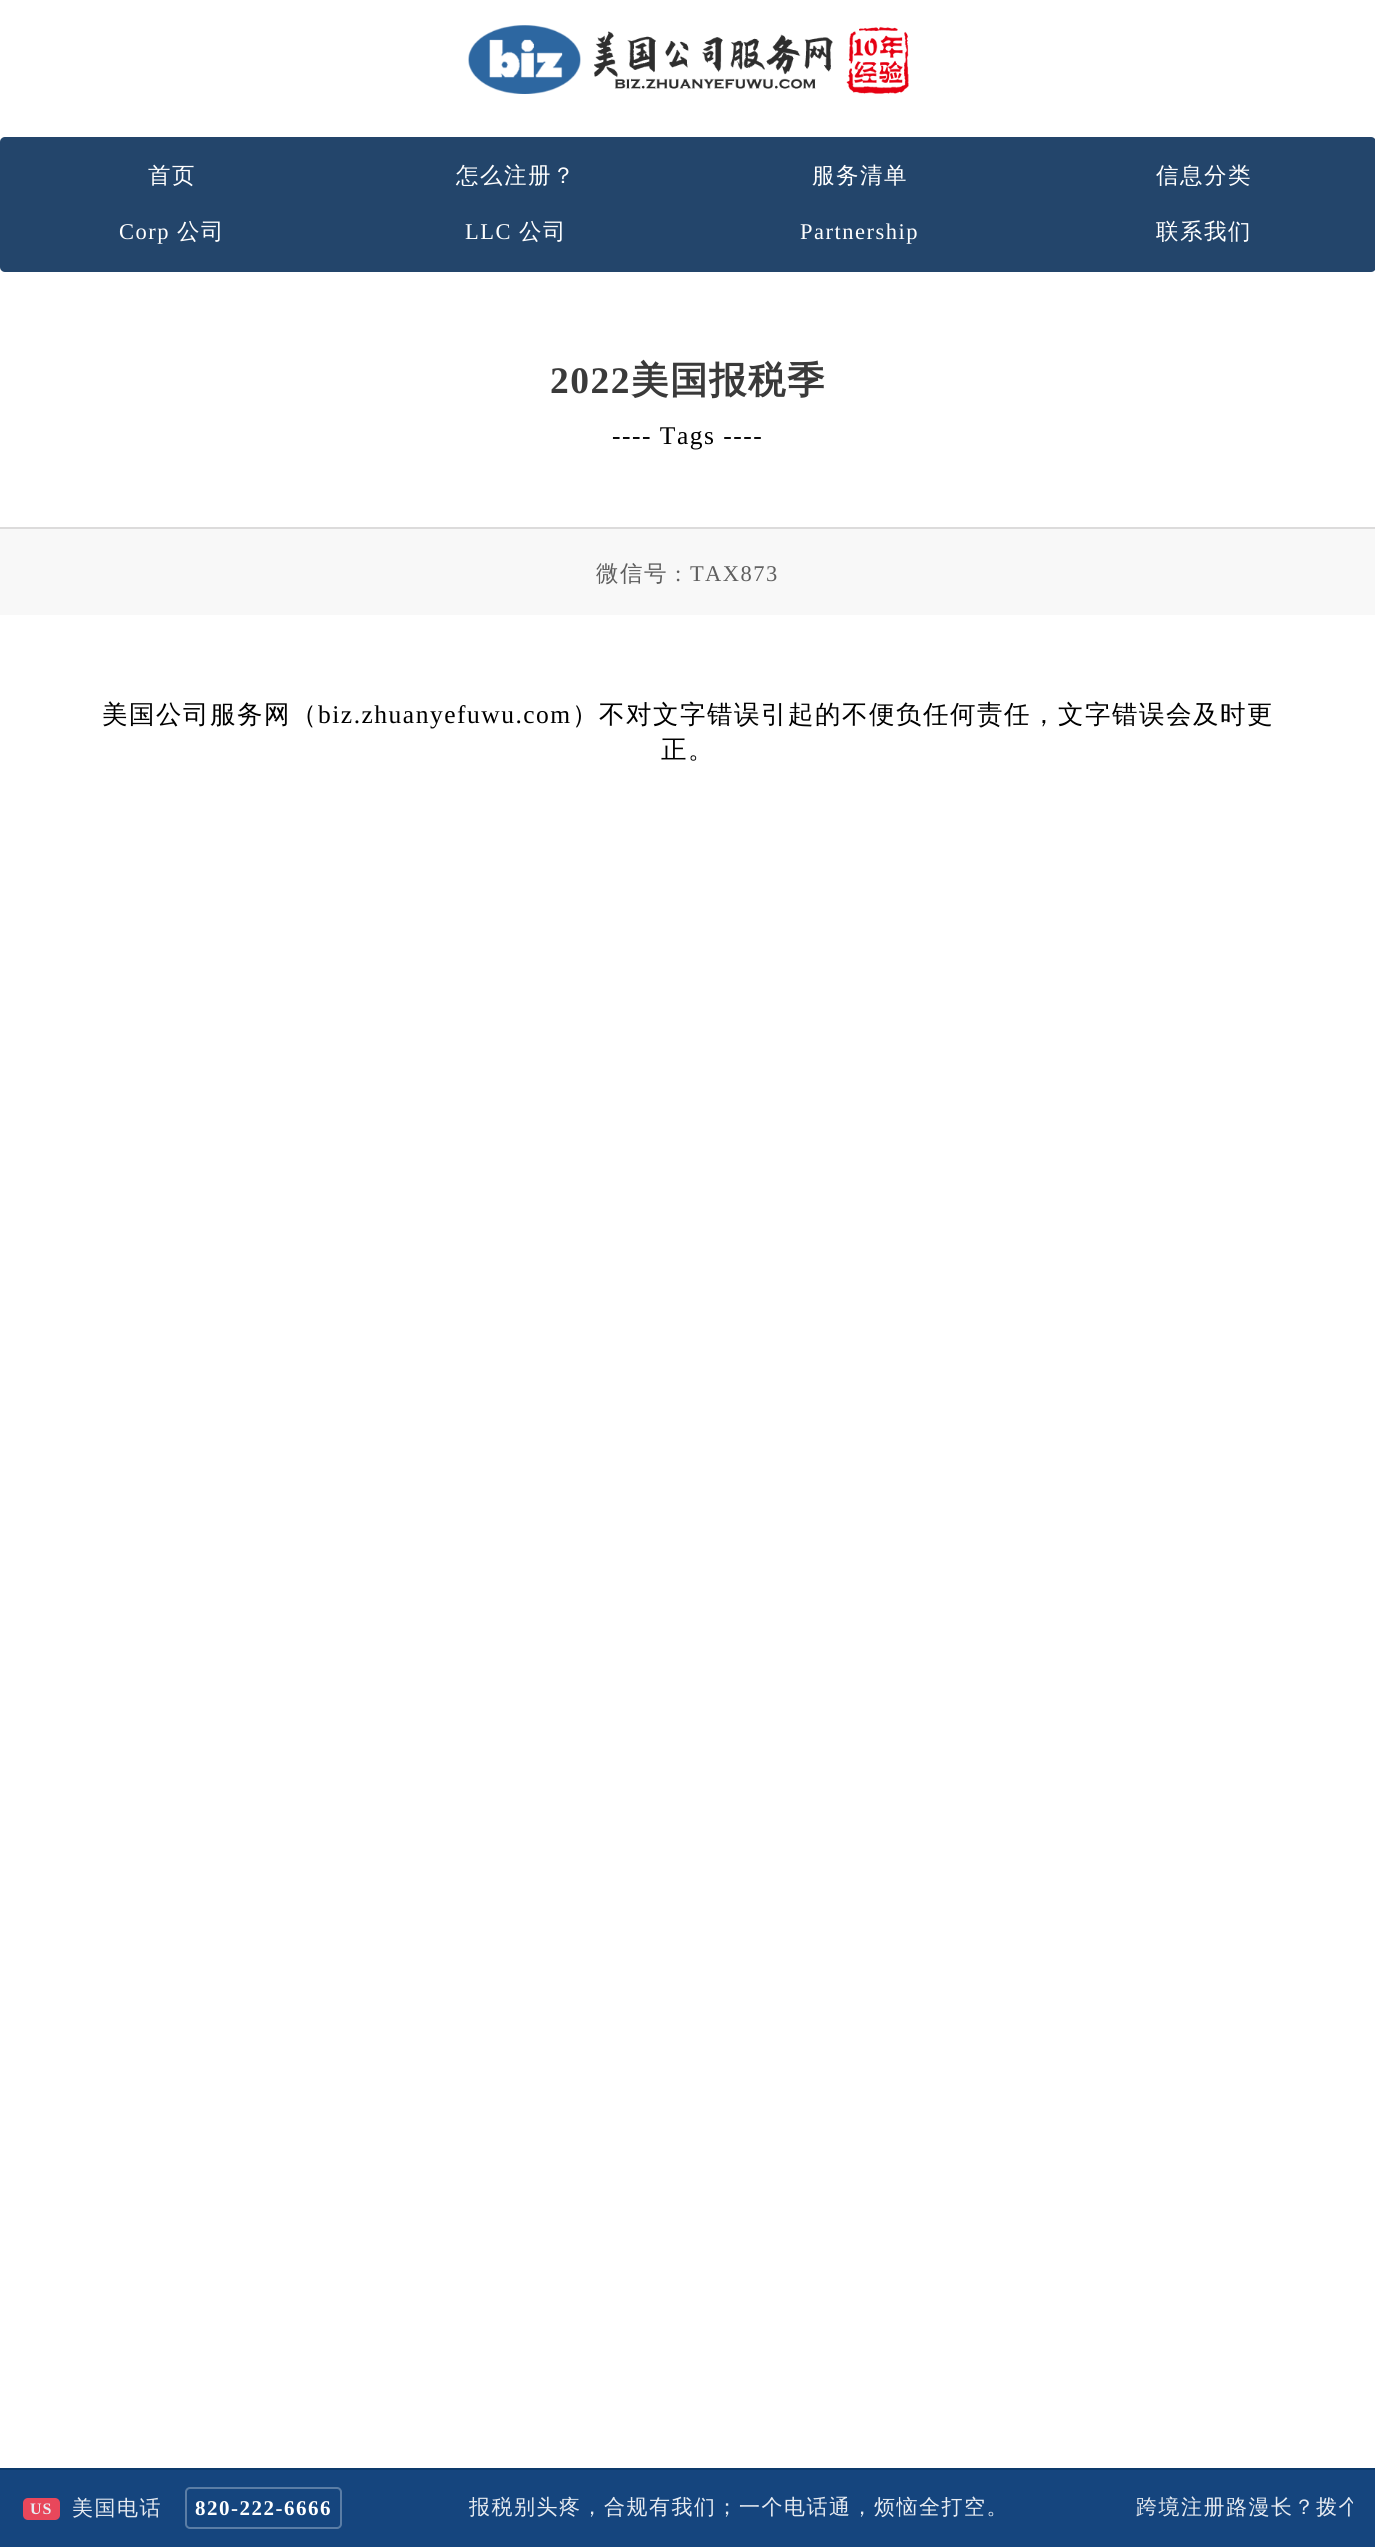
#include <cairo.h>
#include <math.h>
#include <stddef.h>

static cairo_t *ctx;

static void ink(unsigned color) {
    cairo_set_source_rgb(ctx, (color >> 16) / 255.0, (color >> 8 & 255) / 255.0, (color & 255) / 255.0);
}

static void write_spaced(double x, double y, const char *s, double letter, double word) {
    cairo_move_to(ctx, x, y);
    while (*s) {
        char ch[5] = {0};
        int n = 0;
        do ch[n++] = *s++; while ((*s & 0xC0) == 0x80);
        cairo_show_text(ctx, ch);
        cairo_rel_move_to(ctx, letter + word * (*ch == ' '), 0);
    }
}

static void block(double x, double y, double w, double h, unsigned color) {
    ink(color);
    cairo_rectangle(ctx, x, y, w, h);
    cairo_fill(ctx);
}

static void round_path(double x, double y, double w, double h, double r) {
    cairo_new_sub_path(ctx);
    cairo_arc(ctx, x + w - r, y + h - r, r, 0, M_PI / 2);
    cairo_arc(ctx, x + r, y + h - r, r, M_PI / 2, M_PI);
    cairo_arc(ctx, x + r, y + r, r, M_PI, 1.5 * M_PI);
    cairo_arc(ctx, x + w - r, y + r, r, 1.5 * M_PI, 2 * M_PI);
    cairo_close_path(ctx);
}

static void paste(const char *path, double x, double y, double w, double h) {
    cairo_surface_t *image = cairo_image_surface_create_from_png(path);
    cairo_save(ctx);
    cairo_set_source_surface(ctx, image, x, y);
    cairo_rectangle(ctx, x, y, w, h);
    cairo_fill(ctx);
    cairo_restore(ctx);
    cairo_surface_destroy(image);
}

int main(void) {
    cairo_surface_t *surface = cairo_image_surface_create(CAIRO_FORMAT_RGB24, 1375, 2547);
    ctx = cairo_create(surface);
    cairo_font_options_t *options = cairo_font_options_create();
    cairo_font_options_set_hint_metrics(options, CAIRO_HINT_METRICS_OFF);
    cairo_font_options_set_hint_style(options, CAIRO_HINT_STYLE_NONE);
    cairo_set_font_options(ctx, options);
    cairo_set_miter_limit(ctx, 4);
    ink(0xffffff);
    cairo_paint(ctx);
    paste("pic1.png", 468, 25, 441, 70);
    ink(0x23456b);
    round_path(0, 137, 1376, 135, 5);
    cairo_fill(ctx);
    cairo_select_font_face(ctx, "WenQuanYi Zen Hei Medium", CAIRO_FONT_SLANT_NORMAL, CAIRO_FONT_WEIGHT_NORMAL);
    cairo_set_font_size(ctx, 22.5);
    ink(0xffffff);
    write_spaced(148, 183, "首页", 1.5, 0);
    write_spaced(456, 183, "怎么注册？", 1.5, 0);
    write_spaced(812, 183, "服务清单", 1.5, 0);
    write_spaced(1156, 183, "信息分类", 1.5, 0);
    cairo_select_font_face(ctx, "Liberation Serif", CAIRO_FONT_SLANT_NORMAL, CAIRO_FONT_WEIGHT_NORMAL);
    write_spaced(119, 239, "Corp", 1.5, 0);
    cairo_select_font_face(ctx, "WenQuanYi Zen Hei Medium", CAIRO_FONT_SLANT_NORMAL, CAIRO_FONT_WEIGHT_NORMAL);
    write_spaced(177, 239, "公司", 1.5, 0);
    cairo_select_font_face(ctx, "Liberation Serif", CAIRO_FONT_SLANT_NORMAL, CAIRO_FONT_WEIGHT_NORMAL);
    write_spaced(465, 239, "LLC", 1.5, 0);
    cairo_select_font_face(ctx, "WenQuanYi Zen Hei Medium", CAIRO_FONT_SLANT_NORMAL, CAIRO_FONT_WEIGHT_NORMAL);
    write_spaced(519, 239, "公司", 1.5, 0);
    cairo_select_font_face(ctx, "Liberation Serif", CAIRO_FONT_SLANT_NORMAL, CAIRO_FONT_WEIGHT_NORMAL);
    write_spaced(800, 239, "Partnership", 1.5, 0);
    cairo_select_font_face(ctx, "WenQuanYi Zen Hei Medium", CAIRO_FONT_SLANT_NORMAL, CAIRO_FONT_WEIGHT_NORMAL);
    write_spaced(1156, 239, "联系我们", 1.5, 0);
    cairo_select_font_face(ctx, "Liberation Serif", CAIRO_FONT_SLANT_NORMAL, CAIRO_FONT_WEIGHT_BOLD);
    cairo_set_font_size(ctx, 37.5);
    ink(0x3a3a3a);
    write_spaced(550, 393, "2022", 1.5, 0);
    cairo_select_font_face(ctx, "WenQuanYi Zen Hei", CAIRO_FONT_SLANT_NORMAL, CAIRO_FONT_WEIGHT_BOLD);
    write_spaced(631, 393, "美国报税季", 1.5, 0);
    cairo_select_font_face(ctx, "Liberation Serif", CAIRO_FONT_SLANT_NORMAL, CAIRO_FONT_WEIGHT_NORMAL);
    cairo_set_font_size(ctx, 25.5);
    ink(0x000000);
    write_spaced(612, 444, "---- Tags ----", 1.5, 0);
    block(0, 529, 1375, 86, 0xf8f8f8);
    block(0, 527, 1375, 2, 0xdcdbdb);
    cairo_select_font_face(ctx, "WenQuanYi Zen Hei Medium", CAIRO_FONT_SLANT_NORMAL, CAIRO_FONT_WEIGHT_NORMAL);
    cairo_set_font_size(ctx, 22.5);
    ink(0x5f5f5f);
    write_spaced(596, 581, "微信号", 1.5, 0);
    cairo_select_font_face(ctx, "Liberation Serif", CAIRO_FONT_SLANT_NORMAL, CAIRO_FONT_WEIGHT_NORMAL);
    write_spaced(675, 581, ": TAX873", 1.5, 0);
    cairo_select_font_face(ctx, "WenQuanYi Zen Hei Medium", CAIRO_FONT_SLANT_NORMAL, CAIRO_FONT_WEIGHT_NORMAL);
    cairo_set_font_size(ctx, 25.5);
    ink(0x000000);
    write_spaced(102, 723, "美国公司服务网（", 1.5, 0);
    cairo_select_font_face(ctx, "Liberation Serif", CAIRO_FONT_SLANT_NORMAL, CAIRO_FONT_WEIGHT_NORMAL);
    write_spaced(318, 723, "biz.zhuanyefuwu.com", 1.5, 0);
    cairo_select_font_face(ctx, "WenQuanYi Zen Hei Medium", CAIRO_FONT_SLANT_NORMAL, CAIRO_FONT_WEIGHT_NORMAL);
    write_spaced(572, 723, "）不对文字错误引起的不便负任何责任，文字错误会及时更", 1.5, 0);
    write_spaced(661, 758, "正。", 1.5, 0);
    block(0, 2470, 1375, 77, 0x15457e);
    block(0, 2468, 1375, 2, 0x0d3a6b);
    ink(0xe8475b);
    round_path(23, 2498, 37, 22, 5);
    cairo_fill(ctx);
    cairo_select_font_face(ctx, "Liberation Serif", CAIRO_FONT_SLANT_NORMAL, CAIRO_FONT_WEIGHT_BOLD);
    cairo_set_font_size(ctx, 16);
    ink(0xe8ecf2);
    write_spaced(30, 2514, "US", 1, 0);
    cairo_select_font_face(ctx, "WenQuanYi Zen Hei Medium", CAIRO_FONT_SLANT_NORMAL, CAIRO_FONT_WEIGHT_NORMAL);
    cairo_set_font_size(ctx, 21);
    write_spaced(72, 2515, "美国电话", 1.5, 0);
    round_path(186, 2488, 155, 40, 4);
    ink(0x5b7da5);
    cairo_stroke(ctx);
    cairo_select_font_face(ctx, "Liberation Serif", CAIRO_FONT_SLANT_NORMAL, CAIRO_FONT_WEIGHT_BOLD);
    ink(0xffffff);
    write_spaced(195, 2515, "820-222-6666", 1.5, 0);
    cairo_select_font_face(ctx, "WenQuanYi Zen Hei Medium", CAIRO_FONT_SLANT_NORMAL, CAIRO_FONT_WEIGHT_NORMAL);
    ink(0xe8ecf2);
    write_spaced(469, 2514, "报税别头疼，合规有我们；一个电话通，烦恼全打空。", 1.5, 0);
    cairo_save(ctx);
    cairo_rectangle(ctx, 23, 2487, 1330, 42);
    cairo_clip(ctx);
    write_spaced(1136, 2514, "跨境注册路漫长？拨个", 1.5, 0);
    cairo_restore(ctx);
    cairo_surface_write_to_png(surface, "screenshot.png");
    cairo_font_options_destroy(options);
    cairo_destroy(ctx);
    cairo_surface_destroy(surface);
    return 0;
}
